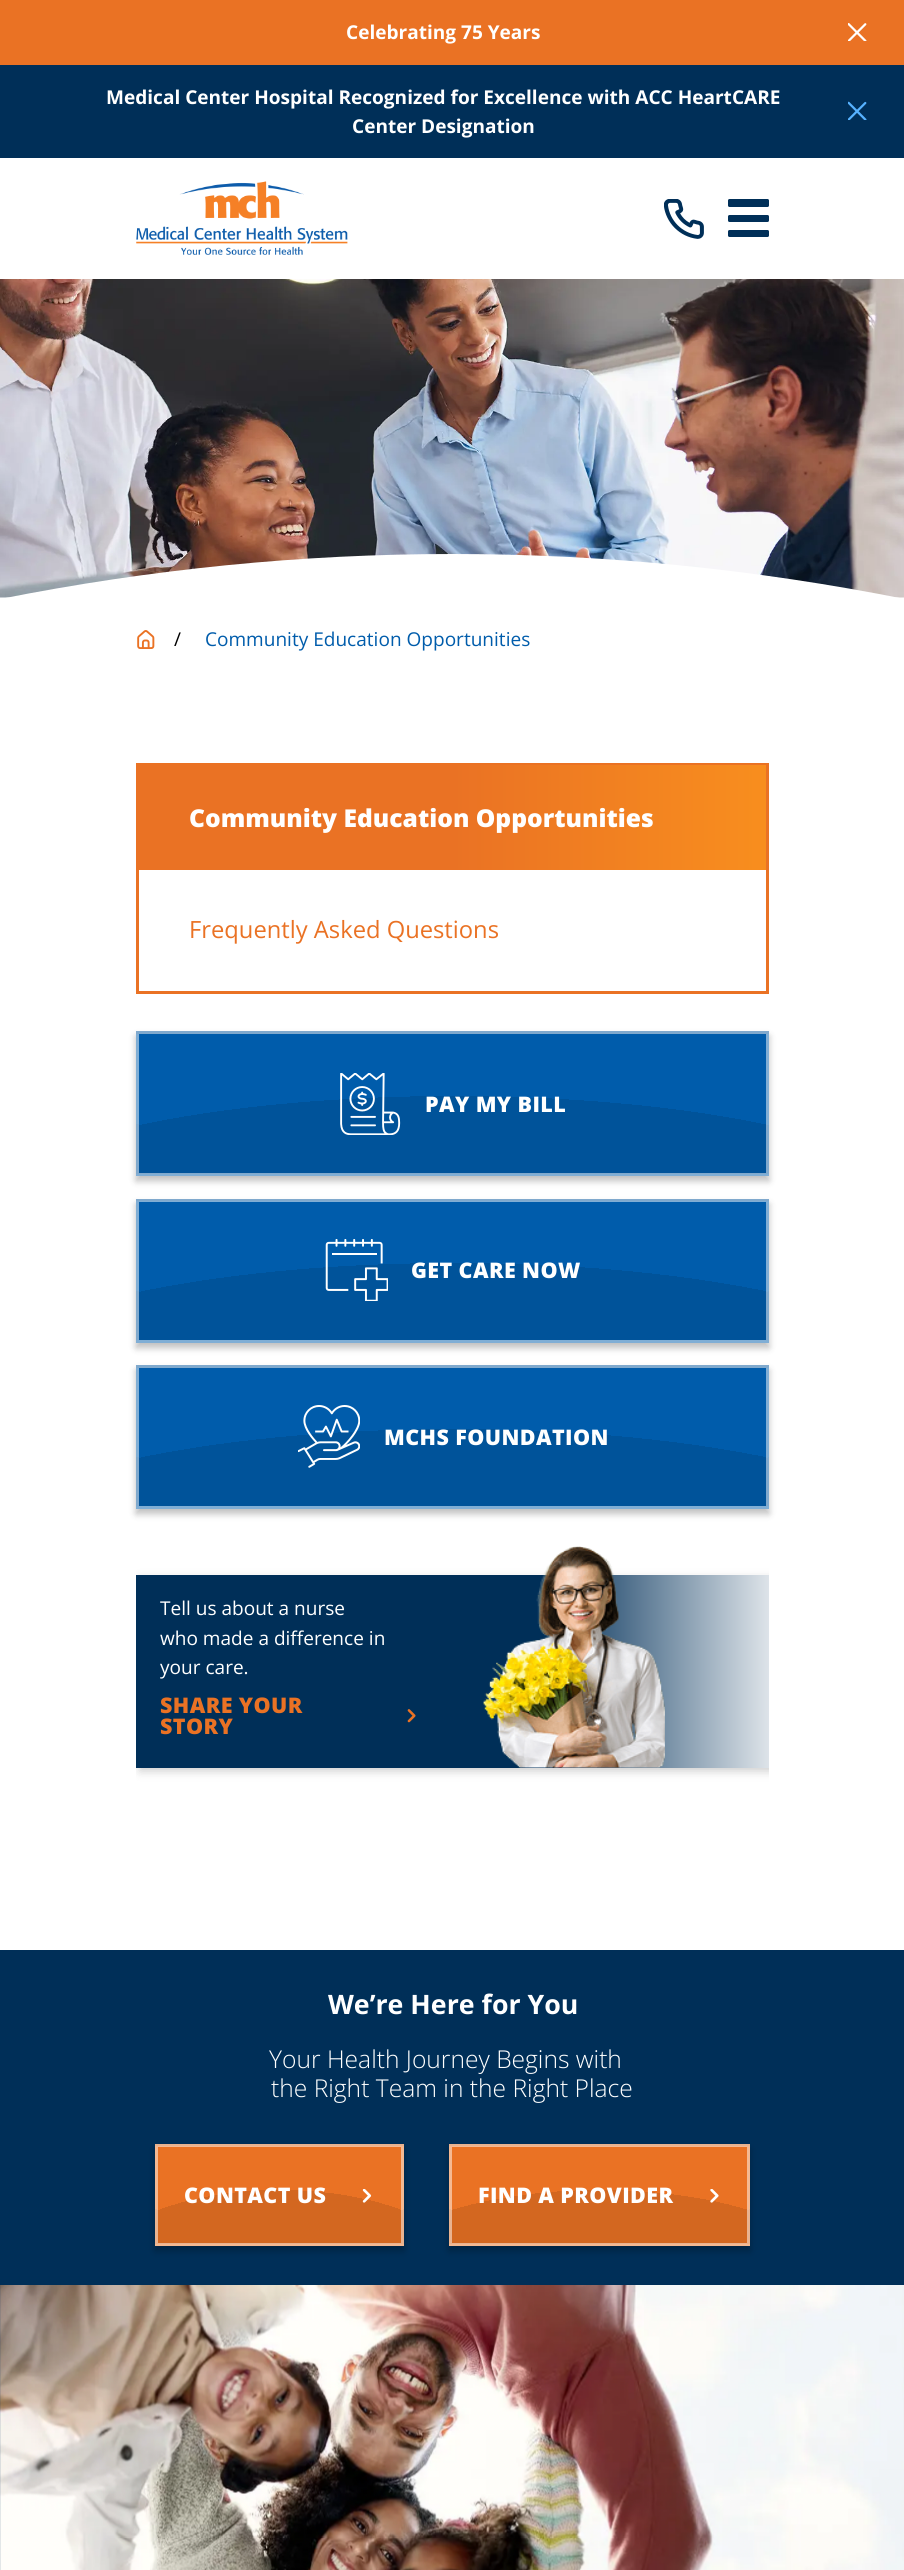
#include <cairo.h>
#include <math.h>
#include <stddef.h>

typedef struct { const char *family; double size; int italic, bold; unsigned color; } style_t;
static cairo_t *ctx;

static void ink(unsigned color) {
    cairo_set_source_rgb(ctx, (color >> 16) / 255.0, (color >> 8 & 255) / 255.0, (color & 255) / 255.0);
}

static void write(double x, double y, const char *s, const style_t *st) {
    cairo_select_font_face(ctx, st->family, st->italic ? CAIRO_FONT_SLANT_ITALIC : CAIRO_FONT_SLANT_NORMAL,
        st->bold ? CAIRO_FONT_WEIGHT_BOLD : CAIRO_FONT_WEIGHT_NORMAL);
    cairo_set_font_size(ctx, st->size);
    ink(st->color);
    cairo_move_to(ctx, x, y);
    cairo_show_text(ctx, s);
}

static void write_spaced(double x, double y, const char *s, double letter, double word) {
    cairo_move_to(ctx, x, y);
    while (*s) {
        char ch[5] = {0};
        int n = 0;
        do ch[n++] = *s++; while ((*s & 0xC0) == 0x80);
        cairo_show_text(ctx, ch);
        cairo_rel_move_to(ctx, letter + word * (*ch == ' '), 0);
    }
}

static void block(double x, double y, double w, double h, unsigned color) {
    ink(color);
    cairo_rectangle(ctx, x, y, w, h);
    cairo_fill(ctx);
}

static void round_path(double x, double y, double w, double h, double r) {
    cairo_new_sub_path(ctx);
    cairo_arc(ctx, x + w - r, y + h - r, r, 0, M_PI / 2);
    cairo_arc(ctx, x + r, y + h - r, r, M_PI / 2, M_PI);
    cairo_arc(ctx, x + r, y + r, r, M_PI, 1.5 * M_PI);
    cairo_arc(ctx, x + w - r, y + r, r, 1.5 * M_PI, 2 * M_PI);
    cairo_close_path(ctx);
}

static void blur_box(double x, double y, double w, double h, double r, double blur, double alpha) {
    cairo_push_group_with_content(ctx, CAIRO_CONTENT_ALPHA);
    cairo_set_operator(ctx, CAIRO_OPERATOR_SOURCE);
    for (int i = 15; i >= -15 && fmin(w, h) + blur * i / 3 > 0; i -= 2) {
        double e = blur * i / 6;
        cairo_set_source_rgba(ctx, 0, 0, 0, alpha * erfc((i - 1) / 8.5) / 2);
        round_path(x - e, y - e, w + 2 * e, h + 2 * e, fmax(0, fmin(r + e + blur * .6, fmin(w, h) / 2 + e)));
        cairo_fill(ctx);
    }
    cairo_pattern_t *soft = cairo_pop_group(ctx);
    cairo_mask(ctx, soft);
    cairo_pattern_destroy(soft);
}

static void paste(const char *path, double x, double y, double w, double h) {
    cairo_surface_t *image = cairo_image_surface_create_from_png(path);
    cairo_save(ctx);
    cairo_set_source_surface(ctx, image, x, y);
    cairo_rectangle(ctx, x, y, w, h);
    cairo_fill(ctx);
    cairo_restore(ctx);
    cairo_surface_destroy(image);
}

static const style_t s1 = {"Open Sans", 19.05, 0, 1, 0xffffff};
static const style_t s2 = {"Open Sans", 19.05, 0, 0, 0x000000};
static const style_t s3 = {"Open Sans", 19.05, 0, 0, 0x005cab};
static const style_t s4 = {"Open Sans ExtraBold", 24.6, 0, 0, 0xffffff};
static const style_t s5 = {"Open Sans", 23.75, 0, 0, 0xea7224};
static const style_t s6 = {"Open Sans", 19.05, 0, 0, 0xffffff};
static const style_t s7 = {"Open Sans", 26.75, 0, 1, 0xffffff};
static const style_t s8 = {"Open Sans Light", 24.6, 0, 0, 0xffffff};

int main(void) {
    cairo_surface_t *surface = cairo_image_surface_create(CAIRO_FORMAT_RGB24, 904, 2570);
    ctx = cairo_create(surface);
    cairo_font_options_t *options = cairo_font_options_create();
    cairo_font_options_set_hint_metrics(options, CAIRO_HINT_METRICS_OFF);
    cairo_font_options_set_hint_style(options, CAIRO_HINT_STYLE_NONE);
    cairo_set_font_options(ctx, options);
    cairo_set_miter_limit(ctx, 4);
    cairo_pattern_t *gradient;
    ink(0xffffff);
    cairo_paint(ctx);
    block(0, 0, 904, 65, 0xea7224);
    write(346, 39, "Celebrating 75 Years", &s1);
    paste("pic1.png", 848, 23, 19, 18);
    block(0, 65, 904, 93, 0x002f58);
    write(106, 104, "Medical Center Hospital Recognized for Excellence with ACC HeartCARE", &s1);
    write(352, 133, "Center Designation", &s1);
    paste("pic2.png", 848, 101, 19, 19);
    paste("pic3.png", 136, 181, 212, 74);
    paste("pic4.png", 664, 199, 40, 40);
    ink(0x002f58);
    round_path(728, 199, 41, 8, 1.5);
    cairo_fill(ctx);
    round_path(728, 215, 41, 7, 1.5);
    cairo_fill(ctx);
    round_path(728, 230, 41, 7, 1.5);
    cairo_fill(ctx);
    paste("pic5.png", 0, 279, 904, 319);
    ink(0xffffff);
    cairo_new_path(ctx);
    cairo_move_to(ctx, 0, 599);
    cairo_curve_to(ctx, 302, 539, 603, 539, 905, 599);
    cairo_close_path(ctx);
    cairo_fill(ctx);
    paste("pic6.png", 137, 630, 18, 19);
    write(174, 646, "/", &s2);
    write(205, 646, "Community Education Opportunities", &s3);
    cairo_rectangle(ctx, 137.5, 764.5, 630, 228);
    ink(0xea7224);
    cairo_set_line_width(ctx, 3);
    cairo_stroke(ctx);
    gradient = cairo_pattern_create_linear(139, 818, 766, 818);
    cairo_pattern_add_color_stop_rgba(gradient, 0.5, 0.918, 0.447, 0.141, 1);
    cairo_pattern_add_color_stop_rgba(gradient, 1, 0.973, 0.557, 0.118, 1);
    cairo_set_source(ctx, gradient);
    cairo_pattern_destroy(gradient);
    cairo_rectangle(ctx, 139, 765, 627, 105);
    cairo_fill(ctx);
    write(189, 827, "Community Education Opportunities", &s4);
    write(189, 938, "Frequently Asked Questions", &s5);
    ink(0x000000);
    blur_box(136, 1036, 633, 145, 0, 3.5, 0.25);
    block(136, 1174, 633, 2, 0x005cab);
    gradient = cairo_pattern_create_radial(0, 0, 0, 0, 0, 1);
    cairo_pattern_set_matrix(gradient, &(cairo_matrix_t){1.0 / 498, 0, 0, 1.0 / 128, -1.0 * -173 / 498, -1.0 * 1084 / 128});
    cairo_pattern_add_color_stop_rgba(gradient, 1, 0, 0.325, 0.604, 1);
    cairo_pattern_add_color_stop_rgba(gradient, 1, 0, 0.361, 0.671, 1);
    cairo_set_source(ctx, gradient);
    cairo_pattern_destroy(gradient);
    cairo_rectangle(ctx, 136, 1031, 3, 3);
    cairo_fill(ctx);
    gradient = cairo_pattern_create_radial(0, 0, 0, 0, 0, 1);
    cairo_pattern_set_matrix(gradient, &(cairo_matrix_t){1.0 / 498, 0, 0, 1.0 / 128, -1.0 * 454 / 498, -1.0 * 1084 / 128});
    cairo_pattern_add_color_stop_rgba(gradient, 1, 0, 0.325, 0.604, 1);
    cairo_pattern_add_color_stop_rgba(gradient, 1, 0, 0.361, 0.671, 1);
    cairo_set_source(ctx, gradient);
    cairo_pattern_destroy(gradient);
    cairo_rectangle(ctx, 139, 1031, 627, 3);
    cairo_fill(ctx);
    gradient = cairo_pattern_create_radial(0, 0, 0, 0, 0, 1);
    cairo_pattern_set_matrix(gradient, &(cairo_matrix_t){1.0 / 498, 0, 0, 1.0 / 128, -1.0 * 1082 / 498, -1.0 * 1084 / 128});
    cairo_pattern_add_color_stop_rgba(gradient, 1, 0, 0.325, 0.604, 1);
    cairo_pattern_add_color_stop_rgba(gradient, 1, 0, 0.361, 0.671, 1);
    cairo_set_source(ctx, gradient);
    cairo_pattern_destroy(gradient);
    cairo_rectangle(ctx, 766, 1031, 3, 3);
    cairo_fill(ctx);
    gradient = cairo_pattern_create_radial(0, 0, 0, 0, 0, 1);
    cairo_pattern_set_matrix(gradient, &(cairo_matrix_t){1.0 / 498, 0, 0, 1.0 / 128, -1.0 * -173 / 498, -1.0 * 1224 / 128});
    cairo_pattern_add_color_stop_rgba(gradient, 1, 0, 0.325, 0.604, 1);
    cairo_pattern_add_color_stop_rgba(gradient, 1, 0, 0.361, 0.671, 1);
    cairo_set_source(ctx, gradient);
    cairo_pattern_destroy(gradient);
    cairo_rectangle(ctx, 136, 1034, 3, 140);
    cairo_fill(ctx);
    gradient = cairo_pattern_create_radial(0, 0, 0, 0, 0, 1);
    cairo_pattern_set_matrix(gradient, &(cairo_matrix_t){1.0 / 498, 0, 0, 1.0 / 128, -1.0 * 454 / 498, -1.0 * 1224 / 128});
    cairo_pattern_add_color_stop_rgba(gradient, 1, 0, 0.325, 0.604, 1);
    cairo_pattern_add_color_stop_rgba(gradient, 1, 0, 0.361, 0.671, 1);
    cairo_set_source(ctx, gradient);
    cairo_pattern_destroy(gradient);
    cairo_rectangle(ctx, 139, 1034, 627, 140);
    cairo_fill(ctx);
    gradient = cairo_pattern_create_radial(0, 0, 0, 0, 0, 1);
    cairo_pattern_set_matrix(gradient, &(cairo_matrix_t){1.0 / 498, 0, 0, 1.0 / 128, -1.0 * 1082 / 498, -1.0 * 1224 / 128});
    cairo_pattern_add_color_stop_rgba(gradient, 1, 0, 0.325, 0.604, 1);
    cairo_pattern_add_color_stop_rgba(gradient, 1, 0, 0.361, 0.671, 1);
    cairo_set_source(ctx, gradient);
    cairo_pattern_destroy(gradient);
    cairo_rectangle(ctx, 766, 1034, 3, 140);
    cairo_fill(ctx);
    cairo_rectangle(ctx, 137.5, 1032.5, 630, 142);
    cairo_set_source_rgba(ctx, 1, 1, 1, 0.5);
    cairo_stroke(ctx);
    paste("pic7.png", 340, 1073, 61, 62);
    cairo_select_font_face(ctx, "Open Sans ExtraBold", CAIRO_FONT_SLANT_NORMAL, CAIRO_FONT_WEIGHT_NORMAL);
    cairo_set_font_size(ctx, 21.5);
    ink(0xffffff);
    write_spaced(425, 1112, "PAY MY BILL", 0.4, 0);
    ink(0x000000);
    blur_box(136, 1204, 633, 144, 0, 3.5, 0.25);
    block(136, 1340, 633, 3, 0x005cab);
    gradient = cairo_pattern_create_radial(0, 0, 0, 0, 0, 1);
    cairo_pattern_set_matrix(gradient, &(cairo_matrix_t){1.0 / 498, 0, 0, 1.0 / 127, -1.0 * -173 / 498, -1.0 * 1251 / 127});
    cairo_pattern_add_color_stop_rgba(gradient, 1, 0, 0.325, 0.604, 1);
    cairo_pattern_add_color_stop_rgba(gradient, 1, 0, 0.361, 0.671, 1);
    cairo_set_source(ctx, gradient);
    cairo_pattern_destroy(gradient);
    cairo_rectangle(ctx, 136, 1199, 3, 2);
    cairo_fill(ctx);
    gradient = cairo_pattern_create_radial(0, 0, 0, 0, 0, 1);
    cairo_pattern_set_matrix(gradient, &(cairo_matrix_t){1.0 / 498, 0, 0, 1.0 / 127, -1.0 * 454 / 498, -1.0 * 1251 / 127});
    cairo_pattern_add_color_stop_rgba(gradient, 1, 0, 0.325, 0.604, 1);
    cairo_pattern_add_color_stop_rgba(gradient, 1, 0, 0.361, 0.671, 1);
    cairo_set_source(ctx, gradient);
    cairo_pattern_destroy(gradient);
    cairo_rectangle(ctx, 139, 1199, 627, 2);
    cairo_fill(ctx);
    gradient = cairo_pattern_create_radial(0, 0, 0, 0, 0, 1);
    cairo_pattern_set_matrix(gradient, &(cairo_matrix_t){1.0 / 498, 0, 0, 1.0 / 127, -1.0 * 1082 / 498, -1.0 * 1251 / 127});
    cairo_pattern_add_color_stop_rgba(gradient, 1, 0, 0.325, 0.604, 1);
    cairo_pattern_add_color_stop_rgba(gradient, 1, 0, 0.361, 0.671, 1);
    cairo_set_source(ctx, gradient);
    cairo_pattern_destroy(gradient);
    cairo_rectangle(ctx, 766, 1199, 3, 2);
    cairo_fill(ctx);
    gradient = cairo_pattern_create_radial(0, 0, 0, 0, 0, 1);
    cairo_pattern_set_matrix(gradient, &(cairo_matrix_t){1.0 / 498, 0, 0, 1.0 / 127, -1.0 * -173 / 498, -1.0 * 1390 / 127});
    cairo_pattern_add_color_stop_rgba(gradient, 1, 0, 0.325, 0.604, 1);
    cairo_pattern_add_color_stop_rgba(gradient, 1, 0, 0.361, 0.671, 1);
    cairo_set_source(ctx, gradient);
    cairo_pattern_destroy(gradient);
    cairo_rectangle(ctx, 136, 1201, 3, 139);
    cairo_fill(ctx);
    gradient = cairo_pattern_create_radial(0, 0, 0, 0, 0, 1);
    cairo_pattern_set_matrix(gradient, &(cairo_matrix_t){1.0 / 498, 0, 0, 1.0 / 127, -1.0 * 454 / 498, -1.0 * 1390 / 127});
    cairo_pattern_add_color_stop_rgba(gradient, 1, 0, 0.325, 0.604, 1);
    cairo_pattern_add_color_stop_rgba(gradient, 1, 0, 0.361, 0.671, 1);
    cairo_set_source(ctx, gradient);
    cairo_pattern_destroy(gradient);
    cairo_rectangle(ctx, 139, 1201, 627, 139);
    cairo_fill(ctx);
    gradient = cairo_pattern_create_radial(0, 0, 0, 0, 0, 1);
    cairo_pattern_set_matrix(gradient, &(cairo_matrix_t){1.0 / 498, 0, 0, 1.0 / 127, -1.0 * 1082 / 498, -1.0 * 1390 / 127});
    cairo_pattern_add_color_stop_rgba(gradient, 1, 0, 0.325, 0.604, 1);
    cairo_pattern_add_color_stop_rgba(gradient, 1, 0, 0.361, 0.671, 1);
    cairo_set_source(ctx, gradient);
    cairo_pattern_destroy(gradient);
    cairo_rectangle(ctx, 766, 1201, 3, 139);
    cairo_fill(ctx);
    cairo_rectangle(ctx, 137.5, 1200.5, 630, 141);
    cairo_set_source_rgba(ctx, 1, 1, 1, 0.5);
    cairo_stroke(ctx);
    paste("pic8.png", 325, 1239, 63, 62);
    ink(0xffffff);
    write_spaced(411, 1278, "GET CARE NOW", 0.4, 0);
    ink(0x000000);
    blur_box(136, 1370, 633, 144, 0, 3.5, 0.25);
    block(136, 1506, 633, 3, 0x005cab);
    gradient = cairo_pattern_create_radial(0, 0, 0, 0, 0, 1);
    cairo_pattern_set_matrix(gradient, &(cairo_matrix_t){1.0 / 498, 0, 0, 1.0 / 127, -1.0 * -173 / 498, -1.0 * 1417 / 127});
    cairo_pattern_add_color_stop_rgba(gradient, 1, 0, 0.325, 0.604, 1);
    cairo_pattern_add_color_stop_rgba(gradient, 1, 0, 0.361, 0.671, 1);
    cairo_set_source(ctx, gradient);
    cairo_pattern_destroy(gradient);
    cairo_rectangle(ctx, 136, 1365, 3, 3);
    cairo_fill(ctx);
    gradient = cairo_pattern_create_radial(0, 0, 0, 0, 0, 1);
    cairo_pattern_set_matrix(gradient, &(cairo_matrix_t){1.0 / 498, 0, 0, 1.0 / 127, -1.0 * 454 / 498, -1.0 * 1417 / 127});
    cairo_pattern_add_color_stop_rgba(gradient, 1, 0, 0.325, 0.604, 1);
    cairo_pattern_add_color_stop_rgba(gradient, 1, 0, 0.361, 0.671, 1);
    cairo_set_source(ctx, gradient);
    cairo_pattern_destroy(gradient);
    cairo_rectangle(ctx, 139, 1365, 627, 3);
    cairo_fill(ctx);
    gradient = cairo_pattern_create_radial(0, 0, 0, 0, 0, 1);
    cairo_pattern_set_matrix(gradient, &(cairo_matrix_t){1.0 / 498, 0, 0, 1.0 / 127, -1.0 * 1082 / 498, -1.0 * 1417 / 127});
    cairo_pattern_add_color_stop_rgba(gradient, 1, 0, 0.325, 0.604, 1);
    cairo_pattern_add_color_stop_rgba(gradient, 1, 0, 0.361, 0.671, 1);
    cairo_set_source(ctx, gradient);
    cairo_pattern_destroy(gradient);
    cairo_rectangle(ctx, 766, 1365, 3, 3);
    cairo_fill(ctx);
    gradient = cairo_pattern_create_radial(0, 0, 0, 0, 0, 1);
    cairo_pattern_set_matrix(gradient, &(cairo_matrix_t){1.0 / 498, 0, 0, 1.0 / 127, -1.0 * -173 / 498, -1.0 * 1556 / 127});
    cairo_pattern_add_color_stop_rgba(gradient, 1, 0, 0.325, 0.604, 1);
    cairo_pattern_add_color_stop_rgba(gradient, 1, 0, 0.361, 0.671, 1);
    cairo_set_source(ctx, gradient);
    cairo_pattern_destroy(gradient);
    cairo_rectangle(ctx, 136, 1368, 3, 138);
    cairo_fill(ctx);
    gradient = cairo_pattern_create_radial(0, 0, 0, 0, 0, 1);
    cairo_pattern_set_matrix(gradient, &(cairo_matrix_t){1.0 / 498, 0, 0, 1.0 / 127, -1.0 * 454 / 498, -1.0 * 1556 / 127});
    cairo_pattern_add_color_stop_rgba(gradient, 1, 0, 0.325, 0.604, 1);
    cairo_pattern_add_color_stop_rgba(gradient, 1, 0, 0.361, 0.671, 1);
    cairo_set_source(ctx, gradient);
    cairo_pattern_destroy(gradient);
    cairo_rectangle(ctx, 139, 1368, 627, 138);
    cairo_fill(ctx);
    gradient = cairo_pattern_create_radial(0, 0, 0, 0, 0, 1);
    cairo_pattern_set_matrix(gradient, &(cairo_matrix_t){1.0 / 498, 0, 0, 1.0 / 127, -1.0 * 1082 / 498, -1.0 * 1556 / 127});
    cairo_pattern_add_color_stop_rgba(gradient, 1, 0, 0.325, 0.604, 1);
    cairo_pattern_add_color_stop_rgba(gradient, 1, 0, 0.361, 0.671, 1);
    cairo_set_source(ctx, gradient);
    cairo_pattern_destroy(gradient);
    cairo_rectangle(ctx, 766, 1368, 3, 138);
    cairo_fill(ctx);
    cairo_rectangle(ctx, 137.5, 1366.5, 630, 141);
    cairo_set_source_rgba(ctx, 1, 1, 1, 0.5);
    cairo_stroke(ctx);
    paste("pic9.png", 298, 1405, 62, 63);
    ink(0xffffff);
    write_spaced(384, 1445, "MCHS FOUNDATION", 0.4, 0);
    cairo_save(ctx);
    cairo_rectangle(ctx, 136, 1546, 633, 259);
    cairo_clip(ctx);
    ink(0x000000);
    blur_box(140, 1579, 633, 192, 0, 5, 0.2);
    cairo_restore(ctx);
    block(136, 1575, 295, 193, 0x002f58);
    write(160, 1615, "Tell us about a nurse", &s6);
    write(160, 1645, "who made a difference in", &s6);
    write(160, 1674, "your care.", &s6);
    cairo_select_font_face(ctx, "Open Sans ExtraBold", CAIRO_FONT_SLANT_NORMAL, CAIRO_FONT_WEIGHT_NORMAL);
    cairo_set_font_size(ctx, 21.5);
    ink(0xea7224);
    write_spaced(160, 1713, "SHARE YOUR", 0.4, 0);
    write_spaced(160, 1734, "STORY", 0.4, 0);
    paste("pic10.png", 407, 1709, 9, 14);
    gradient = cairo_pattern_create_linear(803, 1671, 431, 1671);
    cairo_pattern_add_color_stop_rgba(gradient, 0, 1, 1, 1, 1);
    cairo_pattern_add_color_stop_rgba(gradient, 0.69, 0, 0.184, 0.345, 1);
    cairo_set_source(ctx, gradient);
    cairo_pattern_destroy(gradient);
    cairo_rectangle(ctx, 431, 1575, 338, 193);
    cairo_fill(ctx);
    paste("pic11.png", 483, 1546, 182, 222);
    block(0, 1950, 904, 620, 0x002f58);
    write(328, 2014, "We’re Here for You", &s7);
    write(269, 2068, "Your Health Journey Begins with", &s8);
    write(271, 2097, "the Right Team in the Right Place", &s8);
    ink(0x000000);
    blur_box(155, 2149, 249, 102, 0, 3.5, 0.25);
    block(155, 2244, 249, 2, 0xea7224);
    gradient = cairo_pattern_create_radial(0, 0, 0, 0, 0, 1);
    cairo_pattern_set_matrix(gradient, &(cairo_matrix_t){1.0 / 193, 0, 0, 1.0 / 89, -1.0 * 36 / 193, -1.0 * 2181 / 89});
    cairo_pattern_add_color_stop_rgba(gradient, 1, 0.827, 0.404, 0.125, 1);
    cairo_pattern_add_color_stop_rgba(gradient, 1, 0.918, 0.447, 0.141, 1);
    cairo_set_source(ctx, gradient);
    cairo_pattern_destroy(gradient);
    cairo_rectangle(ctx, 155, 2144, 3, 2);
    cairo_fill(ctx);
    gradient = cairo_pattern_create_radial(0, 0, 0, 0, 0, 1);
    cairo_pattern_set_matrix(gradient, &(cairo_matrix_t){1.0 / 193, 0, 0, 1.0 / 89, -1.0 * 280 / 193, -1.0 * 2181 / 89});
    cairo_pattern_add_color_stop_rgba(gradient, 1, 0.827, 0.404, 0.125, 1);
    cairo_pattern_add_color_stop_rgba(gradient, 1, 0.918, 0.447, 0.141, 1);
    cairo_set_source(ctx, gradient);
    cairo_pattern_destroy(gradient);
    cairo_rectangle(ctx, 158, 2144, 243, 2);
    cairo_fill(ctx);
    gradient = cairo_pattern_create_radial(0, 0, 0, 0, 0, 1);
    cairo_pattern_set_matrix(gradient, &(cairo_matrix_t){1.0 / 193, 0, 0, 1.0 / 89, -1.0 * 524 / 193, -1.0 * 2181 / 89});
    cairo_pattern_add_color_stop_rgba(gradient, 1, 0.827, 0.404, 0.125, 1);
    cairo_pattern_add_color_stop_rgba(gradient, 1, 0.918, 0.447, 0.141, 1);
    cairo_set_source(ctx, gradient);
    cairo_pattern_destroy(gradient);
    cairo_rectangle(ctx, 401, 2144, 3, 2);
    cairo_fill(ctx);
    gradient = cairo_pattern_create_radial(0, 0, 0, 0, 0, 1);
    cairo_pattern_set_matrix(gradient, &(cairo_matrix_t){1.0 / 193, 0, 0, 1.0 / 89, -1.0 * 36 / 193, -1.0 * 2279 / 89});
    cairo_pattern_add_color_stop_rgba(gradient, 1, 0.827, 0.404, 0.125, 1);
    cairo_pattern_add_color_stop_rgba(gradient, 1, 0.918, 0.447, 0.141, 1);
    cairo_set_source(ctx, gradient);
    cairo_pattern_destroy(gradient);
    cairo_rectangle(ctx, 155, 2146, 3, 98);
    cairo_fill(ctx);
    gradient = cairo_pattern_create_radial(0, 0, 0, 0, 0, 1);
    cairo_pattern_set_matrix(gradient, &(cairo_matrix_t){1.0 / 193, 0, 0, 1.0 / 89, -1.0 * 280 / 193, -1.0 * 2279 / 89});
    cairo_pattern_add_color_stop_rgba(gradient, 1, 0.827, 0.404, 0.125, 1);
    cairo_pattern_add_color_stop_rgba(gradient, 1, 0.918, 0.447, 0.141, 1);
    cairo_set_source(ctx, gradient);
    cairo_pattern_destroy(gradient);
    cairo_rectangle(ctx, 158, 2146, 243, 98);
    cairo_fill(ctx);
    gradient = cairo_pattern_create_radial(0, 0, 0, 0, 0, 1);
    cairo_pattern_set_matrix(gradient, &(cairo_matrix_t){1.0 / 193, 0, 0, 1.0 / 89, -1.0 * 524 / 193, -1.0 * 2279 / 89});
    cairo_pattern_add_color_stop_rgba(gradient, 1, 0.827, 0.404, 0.125, 1);
    cairo_pattern_add_color_stop_rgba(gradient, 1, 0.918, 0.447, 0.141, 1);
    cairo_set_source(ctx, gradient);
    cairo_pattern_destroy(gradient);
    cairo_rectangle(ctx, 401, 2146, 3, 98);
    cairo_fill(ctx);
    cairo_rectangle(ctx, 156.5, 2145.5, 246, 99);
    cairo_set_source_rgba(ctx, 1, 1, 1, 0.5);
    cairo_stroke(ctx);
    cairo_select_font_face(ctx, "Open Sans ExtraBold", CAIRO_FONT_SLANT_NORMAL, CAIRO_FONT_WEIGHT_NORMAL);
    cairo_set_font_size(ctx, 21.5);
    ink(0xffffff);
    write_spaced(184, 2203, "CONTACT US", 0.4, 0);
    paste("pic12.png", 362, 2189, 10, 14);
    ink(0x000000);
    blur_box(449, 2149, 301, 102, 0, 3.5, 0.25);
    block(449, 2244, 301, 2, 0xea7224);
    gradient = cairo_pattern_create_radial(0, 0, 0, 0, 0, 1);
    cairo_pattern_set_matrix(gradient, &(cairo_matrix_t){1.0 / 235, 0, 0, 1.0 / 89, -1.0 * 304 / 235, -1.0 * 2181 / 89});
    cairo_pattern_add_color_stop_rgba(gradient, 1, 0.827, 0.404, 0.125, 1);
    cairo_pattern_add_color_stop_rgba(gradient, 1, 0.918, 0.447, 0.141, 1);
    cairo_set_source(ctx, gradient);
    cairo_pattern_destroy(gradient);
    cairo_rectangle(ctx, 449, 2144, 2, 2);
    cairo_fill(ctx);
    gradient = cairo_pattern_create_radial(0, 0, 0, 0, 0, 1);
    cairo_pattern_set_matrix(gradient, &(cairo_matrix_t){1.0 / 235, 0, 0, 1.0 / 89, -1.0 * 600 / 235, -1.0 * 2181 / 89});
    cairo_pattern_add_color_stop_rgba(gradient, 1, 0.827, 0.404, 0.125, 1);
    cairo_pattern_add_color_stop_rgba(gradient, 1, 0.918, 0.447, 0.141, 1);
    cairo_set_source(ctx, gradient);
    cairo_pattern_destroy(gradient);
    cairo_rectangle(ctx, 451, 2144, 297, 2);
    cairo_fill(ctx);
    gradient = cairo_pattern_create_radial(0, 0, 0, 0, 0, 1);
    cairo_pattern_set_matrix(gradient, &(cairo_matrix_t){1.0 / 235, 0, 0, 1.0 / 89, -1.0 * 896 / 235, -1.0 * 2181 / 89});
    cairo_pattern_add_color_stop_rgba(gradient, 1, 0.827, 0.404, 0.125, 1);
    cairo_pattern_add_color_stop_rgba(gradient, 1, 0.918, 0.447, 0.141, 1);
    cairo_set_source(ctx, gradient);
    cairo_pattern_destroy(gradient);
    cairo_rectangle(ctx, 748, 2144, 2, 2);
    cairo_fill(ctx);
    gradient = cairo_pattern_create_radial(0, 0, 0, 0, 0, 1);
    cairo_pattern_set_matrix(gradient, &(cairo_matrix_t){1.0 / 235, 0, 0, 1.0 / 89, -1.0 * 304 / 235, -1.0 * 2279 / 89});
    cairo_pattern_add_color_stop_rgba(gradient, 1, 0.827, 0.404, 0.125, 1);
    cairo_pattern_add_color_stop_rgba(gradient, 1, 0.918, 0.447, 0.141, 1);
    cairo_set_source(ctx, gradient);
    cairo_pattern_destroy(gradient);
    cairo_rectangle(ctx, 449, 2146, 2, 98);
    cairo_fill(ctx);
    gradient = cairo_pattern_create_radial(0, 0, 0, 0, 0, 1);
    cairo_pattern_set_matrix(gradient, &(cairo_matrix_t){1.0 / 235, 0, 0, 1.0 / 89, -1.0 * 600 / 235, -1.0 * 2279 / 89});
    cairo_pattern_add_color_stop_rgba(gradient, 1, 0.827, 0.404, 0.125, 1);
    cairo_pattern_add_color_stop_rgba(gradient, 1, 0.918, 0.447, 0.141, 1);
    cairo_set_source(ctx, gradient);
    cairo_pattern_destroy(gradient);
    cairo_rectangle(ctx, 451, 2146, 297, 98);
    cairo_fill(ctx);
    gradient = cairo_pattern_create_radial(0, 0, 0, 0, 0, 1);
    cairo_pattern_set_matrix(gradient, &(cairo_matrix_t){1.0 / 235, 0, 0, 1.0 / 89, -1.0 * 896 / 235, -1.0 * 2279 / 89});
    cairo_pattern_add_color_stop_rgba(gradient, 1, 0.827, 0.404, 0.125, 1);
    cairo_pattern_add_color_stop_rgba(gradient, 1, 0.918, 0.447, 0.141, 1);
    cairo_set_source(ctx, gradient);
    cairo_pattern_destroy(gradient);
    cairo_rectangle(ctx, 748, 2146, 2, 98);
    cairo_fill(ctx);
    cairo_rectangle(ctx, 450.5, 2145.5, 298, 99);
    cairo_set_source_rgba(ctx, 1, 1, 1, 0.5);
    cairo_stroke(ctx);
    ink(0xffffff);
    write_spaced(478, 2203, "FIND A PROVIDER", 0.4, 0);
    paste("pic13.png", 710, 2189, 9, 14);
    paste("pic14.png", 0, 2285, 904, 285);
    cairo_surface_write_to_png(surface, "screenshot.png");
    cairo_font_options_destroy(options);
    cairo_destroy(ctx);
    cairo_surface_destroy(surface);
    return 0;
}
